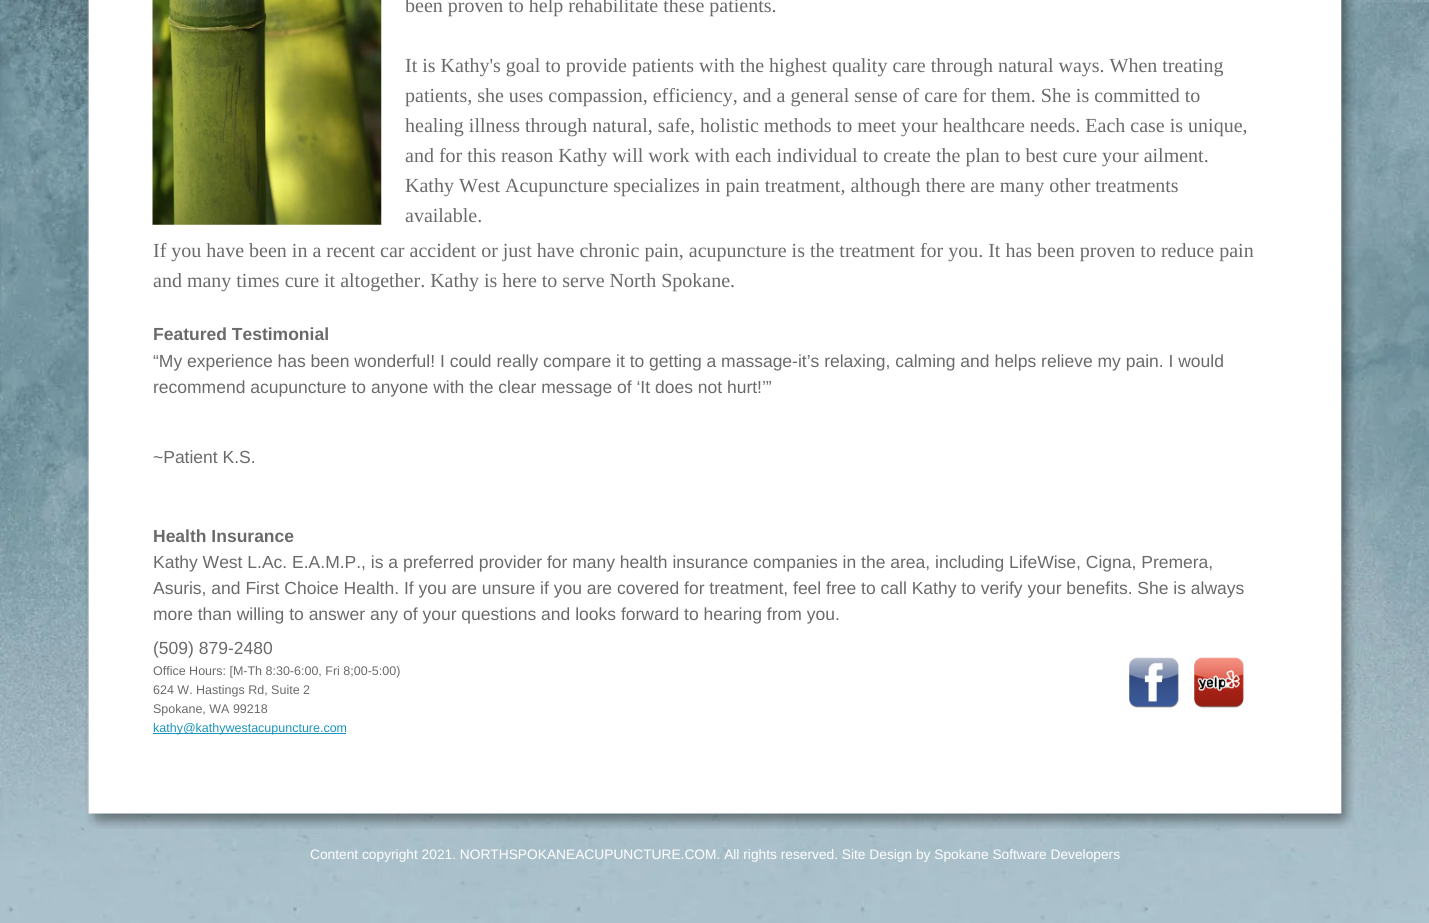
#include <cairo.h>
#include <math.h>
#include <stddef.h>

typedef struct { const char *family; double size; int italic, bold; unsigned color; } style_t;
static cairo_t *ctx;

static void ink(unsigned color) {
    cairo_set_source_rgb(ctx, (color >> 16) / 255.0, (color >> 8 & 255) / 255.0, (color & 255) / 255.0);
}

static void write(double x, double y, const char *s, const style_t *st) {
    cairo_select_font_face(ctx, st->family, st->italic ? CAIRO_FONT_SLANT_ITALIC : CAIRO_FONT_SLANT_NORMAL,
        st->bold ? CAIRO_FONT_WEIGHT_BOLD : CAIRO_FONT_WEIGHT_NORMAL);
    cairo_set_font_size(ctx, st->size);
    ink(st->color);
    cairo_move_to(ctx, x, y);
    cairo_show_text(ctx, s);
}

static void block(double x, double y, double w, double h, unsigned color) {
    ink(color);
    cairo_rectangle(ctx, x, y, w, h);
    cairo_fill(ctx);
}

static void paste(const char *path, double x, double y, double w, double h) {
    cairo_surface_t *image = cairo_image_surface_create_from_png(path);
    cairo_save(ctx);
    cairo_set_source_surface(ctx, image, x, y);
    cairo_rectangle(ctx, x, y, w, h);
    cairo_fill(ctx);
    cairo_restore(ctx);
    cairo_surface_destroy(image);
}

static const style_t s1 = {"Liberation Serif", 20, 0, 0, 0x6a6a6a};
static const style_t s2 = {"Liberation Sans", 17.5, 0, 1, 0x6a6a6a};
static const style_t s3 = {"Liberation Sans", 17.5, 0, 0, 0x6a6a6a};
static const style_t s4 = {"Liberation Sans", 12.5, 0, 0, 0x6a6a6a};
static const style_t s5 = {"Liberation Sans", 12.5, 0, 0, 0x1a94be};
static const style_t s6 = {"Liberation Sans", 13.75, 0, 0, 0xffffff};

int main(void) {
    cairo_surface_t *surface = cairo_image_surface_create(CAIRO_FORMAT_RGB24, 1429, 923);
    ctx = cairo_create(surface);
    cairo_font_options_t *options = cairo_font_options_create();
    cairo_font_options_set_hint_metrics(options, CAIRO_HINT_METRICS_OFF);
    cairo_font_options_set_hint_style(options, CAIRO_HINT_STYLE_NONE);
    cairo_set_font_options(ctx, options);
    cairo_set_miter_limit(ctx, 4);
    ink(0xffffff);
    cairo_paint(ctx);
    paste("pic1.png", 0, 0, 1429, 923);
    paste("pic2.png", 85, 0, 1270, 796);
    paste("pic3.png", 152, 0, 230, 225);
    write(405, 12, "been proven to help rehabilitate these patients.", &s1);
    write(405, 72, "It is Kathy's goal to provide patients with the highest quality care through natural ways. When treating", &s1);
    write(405, 102, "patients, she uses compassion, efficiency, and a general sense of care for them. She is committed to", &s1);
    write(405, 132, "healing illness through natural, safe, holistic methods to meet your healthcare needs. Each case is unique,", &s1);
    write(405, 162, "and for this reason Kathy will work with each individual to create the plan to best cure your ailment.", &s1);
    write(405, 192, "Kathy West Acupuncture specializes in pain treatment, although there are many other treatments", &s1);
    write(405, 222, "available.", &s1);
    write(153, 257, "If you have been in a recent car accident or just have chronic pain, acupuncture is the treatment for you. It has been proven to reduce pain", &s1);
    write(153, 287, "and many times cure it altogether. Kathy is here to serve North Spokane.", &s1);
    write(153, 340, "Featured Testimonial", &s2);
    write(153, 367, "“My experience has been wonderful! I could really compare it to getting a massage-it’s relaxing, calming and helps relieve my pain. I would", &s3);
    write(153, 393, "recommend acupuncture to anyone with the clear message of ‘It does not hurt!’”", &s3);
    write(153, 463, "~Patient K.S.", &s3);
    write(153, 542, "Health Insurance", &s2);
    write(153, 568, "Kathy West L.Ac. E.A.M.P., is a preferred provider for many health insurance companies in the area, including LifeWise, Cigna, Premera,", &s3);
    write(153, 594, "Asuris, and First Choice Health. If you are unsure if you are covered for treatment, feel free to call Kathy to verify your benefits. She is always", &s3);
    write(153, 620, "more than willing to answer any of your questions and looks forward to hearing from you.", &s3);
    write(153, 654, "(509) 879-2480", &s3);
    write(153, 675, "Office Hours: [M-Th 8:30-6:00, Fri 8;00-5:00)", &s4);
    write(153, 694, "624 W. Hastings Rd, Suite 2", &s4);
    write(153, 713, "Spokane, WA 99218", &s4);
    block(153, 733, 193, 1, 0x1a94be);
    write(153, 732, "kathy@kathywestacupuncture.com", &s5);
    paste("pic4.png", 1129, 657, 50, 51);
    paste("pic5.png", 1194, 657, 50, 51);
    paste("pic6.png", 85, 796, 1269, 33);
    write(310, 859, "Content copyright 2021. NORTHSPOKANEACUPUNCTURE.COM. All rights reserved. Site Design by Spokane Software Developers", &s6);
    cairo_surface_write_to_png(surface, "screenshot.png");
    cairo_font_options_destroy(options);
    cairo_destroy(ctx);
    cairo_surface_destroy(surface);
    return 0;
}
